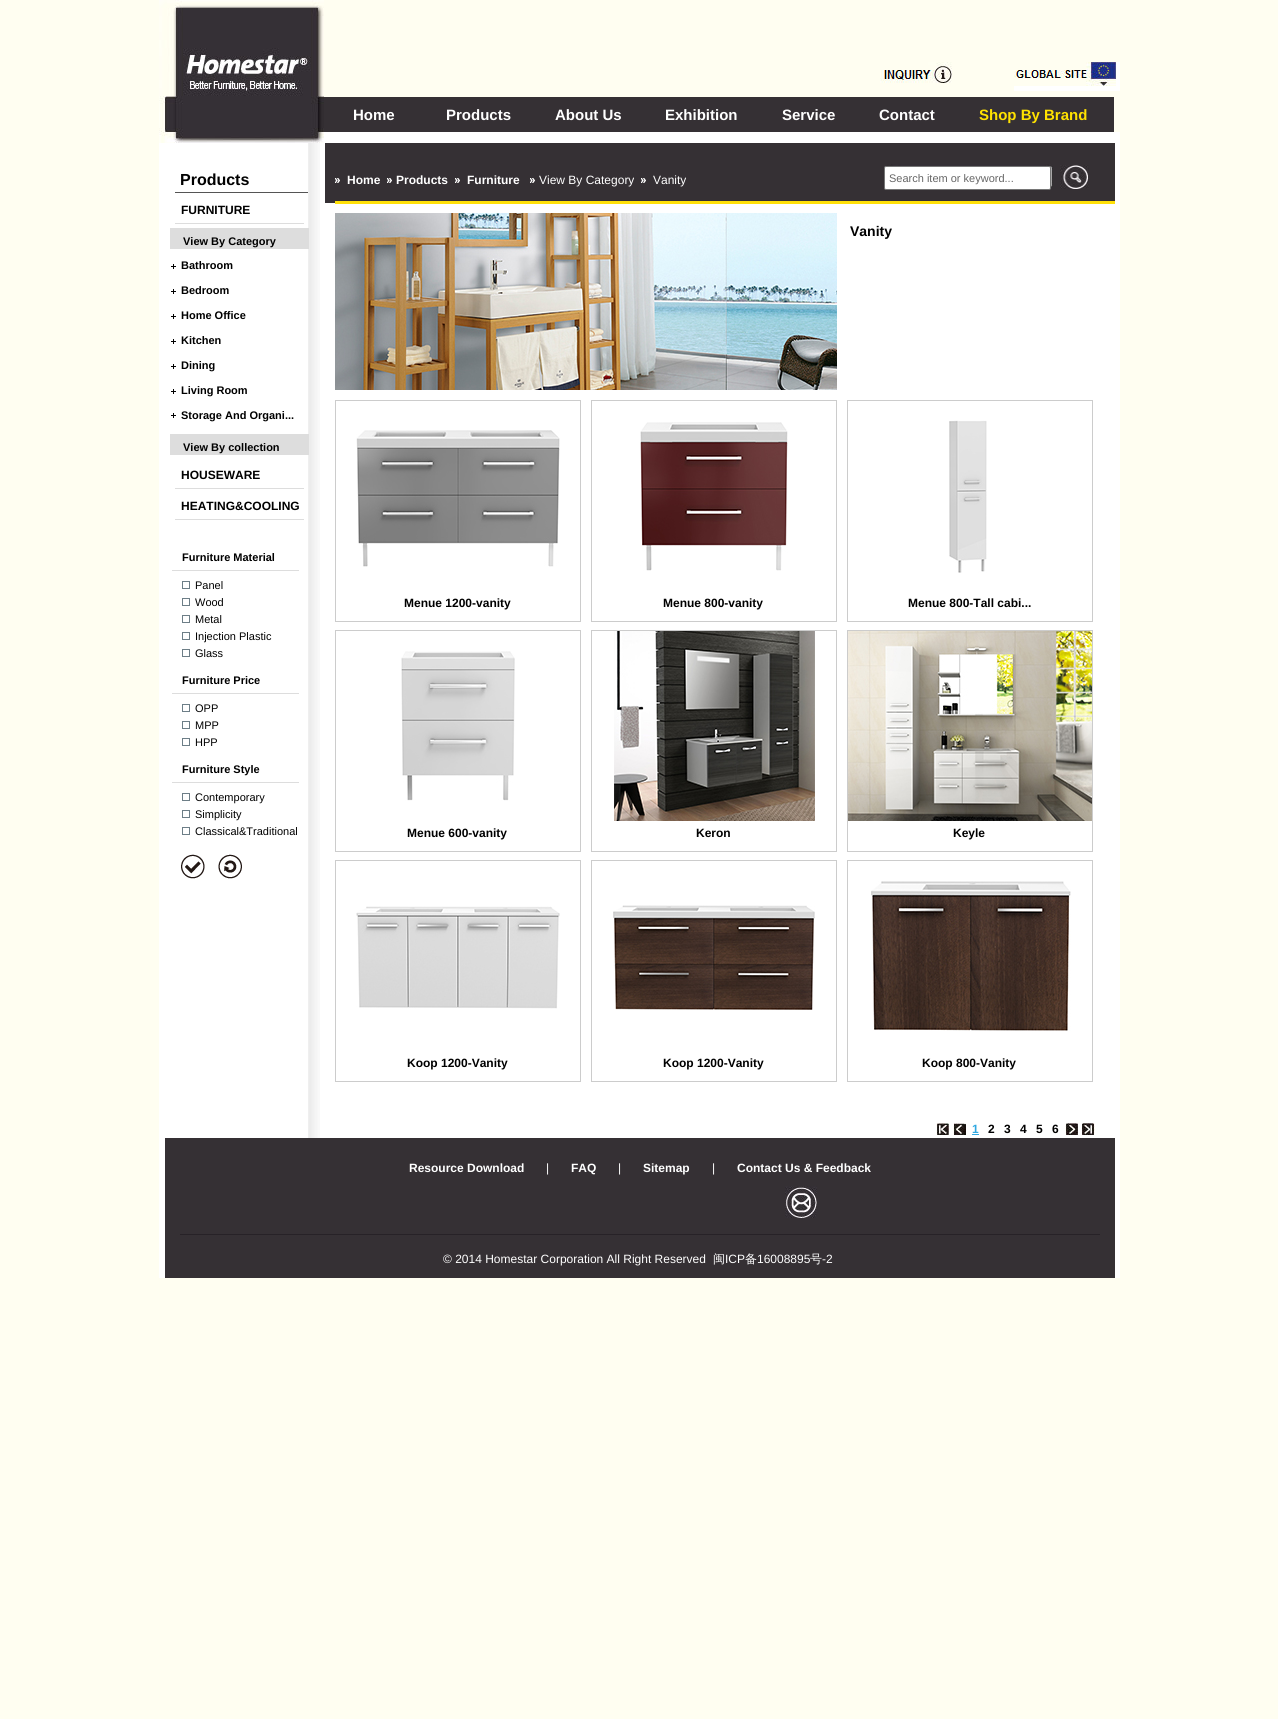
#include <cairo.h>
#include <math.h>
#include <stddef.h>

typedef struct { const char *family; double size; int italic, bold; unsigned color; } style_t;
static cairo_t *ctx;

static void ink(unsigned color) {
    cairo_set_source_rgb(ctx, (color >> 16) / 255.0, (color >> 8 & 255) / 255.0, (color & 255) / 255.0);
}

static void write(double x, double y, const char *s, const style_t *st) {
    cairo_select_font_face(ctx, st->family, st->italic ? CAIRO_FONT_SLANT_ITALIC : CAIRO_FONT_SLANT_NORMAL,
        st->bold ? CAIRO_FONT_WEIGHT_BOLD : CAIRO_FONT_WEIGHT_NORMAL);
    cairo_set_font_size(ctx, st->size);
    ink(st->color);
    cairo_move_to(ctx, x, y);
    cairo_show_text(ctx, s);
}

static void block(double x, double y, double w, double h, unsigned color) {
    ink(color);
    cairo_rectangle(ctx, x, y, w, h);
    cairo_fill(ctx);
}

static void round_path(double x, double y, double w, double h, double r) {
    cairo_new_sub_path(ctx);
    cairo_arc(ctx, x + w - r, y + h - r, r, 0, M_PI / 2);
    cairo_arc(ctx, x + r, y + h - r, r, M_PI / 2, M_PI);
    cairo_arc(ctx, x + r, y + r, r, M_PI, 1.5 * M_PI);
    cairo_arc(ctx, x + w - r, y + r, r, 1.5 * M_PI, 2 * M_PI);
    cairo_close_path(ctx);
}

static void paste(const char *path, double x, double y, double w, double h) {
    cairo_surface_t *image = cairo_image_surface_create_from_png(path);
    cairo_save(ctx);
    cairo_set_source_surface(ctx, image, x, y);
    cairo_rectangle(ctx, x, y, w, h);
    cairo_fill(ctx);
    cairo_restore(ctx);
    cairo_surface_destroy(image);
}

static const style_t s1 = {"Liberation Sans", 15, 0, 1, 0xffffff};
static const style_t s2 = {"Liberation Sans", 15, 0, 1, 0xffe200};
static const style_t s3 = {"Liberation Sans", 16, 0, 1, 0x000000};
static const style_t s4 = {"Liberation Sans", 12, 0, 1, 0x000000};
static const style_t s5 = {"Liberation Sans", 11, 0, 1, 0x000000};
static const style_t s6 = {"Liberation Sans", 11, 0, 0, 0x000000};
static const style_t s7 = {"Liberation Sans", 12, 0, 1, 0xffffff};
static const style_t s8 = {"Liberation Sans", 12, 0, 0, 0xffffff};
static const style_t s9 = {"Liberation Sans", 11, 0, 0, 0x666666};
static const style_t s10 = {"Liberation Sans", 14, 0, 1, 0x000000};
static const style_t s11 = {"Liberation Sans", 12, 0, 1, 0x2fa8e1};
static const style_t s12 = {"WenQuanYi Zen Hei Medium", 12, 0, 0, 0xffffff};

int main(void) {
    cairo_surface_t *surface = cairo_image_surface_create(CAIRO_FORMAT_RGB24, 1278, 1719);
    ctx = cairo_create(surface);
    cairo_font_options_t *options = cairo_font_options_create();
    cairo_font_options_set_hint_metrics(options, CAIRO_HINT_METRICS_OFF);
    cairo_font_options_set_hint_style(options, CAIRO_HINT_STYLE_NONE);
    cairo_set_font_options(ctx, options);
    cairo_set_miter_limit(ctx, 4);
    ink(0xfffef1);
    cairo_paint(ctx);
    block(159, 132, 961, 1146, 0xffffff);
    paste("pic1.png", 159, 0, 165, 143);
    paste("pic2.png", 880, 62, 72, 21);
    block(1014, 62, 106, 29, 0xffffff);
    paste("pic3.png", 1014, 62, 102, 24);
    block(324, 97, 790, 35, 0x353034);
    write(353, 120, "Home", &s1);
    write(446, 120, "Products", &s1);
    write(555, 120, "About Us", &s1);
    write(665, 120, "Exhibition", &s1);
    write(782, 120, "Service", &s1);
    write(879, 120, "Contact", &s1);
    write(979, 120, "Shop By Brand", &s2);
    paste("pic4.png", 308, 143, 12, 995);
    block(175, 192, 133, 1, 0x555555);
    write(180, 185, "Products", &s3);
    block(175, 223, 129, 1, 0xdddddd);
    write(181, 214, "FURNITURE", &s4);
    block(170, 228, 139, 21, 0xdddddd);
    write(183, 245, "View By Category", &s5);
    paste("pic5.png", 171, 264, 5, 5);
    write(181, 269, "Bathroom", &s5);
    paste("pic5.png", 171, 289, 5, 5);
    write(181, 294, "Bedroom", &s5);
    paste("pic5.png", 171, 314, 5, 5);
    write(181, 319, "Home Office", &s5);
    paste("pic5.png", 171, 339, 5, 5);
    write(181, 344, "Kitchen", &s5);
    paste("pic5.png", 171, 364, 5, 5);
    write(181, 369, "Dining", &s5);
    paste("pic5.png", 171, 389, 5, 5);
    write(181, 394, "Living Room", &s5);
    paste("pic5.png", 171, 413, 5, 5);
    write(181, 419, "Storage And Organi...", &s5);
    block(170, 434, 139, 21, 0xdddddd);
    write(183, 451, "View By collection", &s5);
    block(175, 488, 129, 1, 0xdddddd);
    write(181, 479, "HOUSEWARE", &s4);
    block(175, 519, 129, 1, 0xdddddd);
    write(181, 510, "HEATING&COOLING", &s4);
    block(172, 570, 127, 1, 0xdddddd);
    write(182, 561, "Furniture Material", &s5);
    cairo_rectangle(ctx, 182.5, 581.5, 7, 7);
    ink(0x6d7e87);
    cairo_set_line_width(ctx, 1);
    cairo_stroke(ctx);
    write(195, 589, "Panel", &s6);
    cairo_rectangle(ctx, 182.5, 598.5, 7, 7);
    ink(0x6d7e87);
    cairo_stroke(ctx);
    write(195, 606, "Wood", &s6);
    cairo_rectangle(ctx, 182.5, 615.5, 7, 7);
    ink(0x6d7e87);
    cairo_stroke(ctx);
    write(195, 623, "Metal", &s6);
    cairo_rectangle(ctx, 182.5, 632.5, 7, 7);
    ink(0x6d7e87);
    cairo_stroke(ctx);
    write(195, 640, "Injection Plastic", &s6);
    cairo_rectangle(ctx, 182.5, 649.5, 7, 7);
    ink(0x6d7e87);
    cairo_stroke(ctx);
    write(195, 657, "Glass", &s6);
    block(172, 693, 127, 1, 0xdddddd);
    write(182, 684, "Furniture Price", &s5);
    cairo_rectangle(ctx, 182.5, 704.5, 7, 7);
    ink(0x6d7e87);
    cairo_stroke(ctx);
    write(195, 712, "OPP", &s6);
    cairo_rectangle(ctx, 182.5, 721.5, 7, 7);
    ink(0x6d7e87);
    cairo_stroke(ctx);
    write(195, 729, "MPP", &s6);
    cairo_rectangle(ctx, 182.5, 738.5, 7, 7);
    ink(0x6d7e87);
    cairo_stroke(ctx);
    write(195, 746, "HPP", &s6);
    block(172, 782, 127, 1, 0xdddddd);
    write(182, 773, "Furniture Style", &s5);
    cairo_rectangle(ctx, 182.5, 793.5, 7, 7);
    ink(0x6d7e87);
    cairo_stroke(ctx);
    write(195, 801, "Contemporary", &s6);
    cairo_rectangle(ctx, 182.5, 810.5, 7, 7);
    ink(0x6d7e87);
    cairo_stroke(ctx);
    write(195, 818, "Simplicity", &s6);
    cairo_rectangle(ctx, 182.5, 827.5, 7, 7);
    ink(0x6d7e87);
    cairo_stroke(ctx);
    write(195, 835, "Classical&Traditional", &s6);
    paste("pic6.png", 181, 854, 24, 25);
    paste("pic7.png", 218, 854, 24, 25);
    block(325, 143, 790, 60, 0x353034);
    block(335, 201, 780, 3, 0xffe009);
    paste("pic8.png", 335, 178, 5, 5);
    write(347, 184, "Home", &s7);
    paste("pic8.png", 387, 178, 5, 5);
    write(396, 184, "Products", &s7);
    paste("pic8.png", 455, 178, 5, 5);
    write(467, 184, "Furniture", &s7);
    paste("pic8.png", 530, 178, 5, 5);
    write(539, 184, "View By Category", &s8);
    paste("pic8.png", 641, 178, 5, 5);
    write(653, 184, "Vanity", &s8);
    paste("pic9.png", 884, 164, 169, 23);
    round_path(884.5, 166.5, 166, 23, 1.5);
    cairo_fill_preserve(ctx);
    ink(0x767676);
    cairo_stroke(ctx);
    write(889, 182, "Search item or keyword...", &s9);
    paste("pic10.png", 1060, 165, 29, 24);
    paste("pic11.png", 335, 213, 502, 177);
    write(850, 236, "Vanity", &s10);
    cairo_rectangle(ctx, 335.5, 400.5, 245, 221);
    ink(0xcccccc);
    cairo_stroke(ctx);
    paste("pic12.png", 356, 430, 204, 137);
    write(404, 607, "Menue 1200-vanity", &s4);
    cairo_rectangle(ctx, 591.5, 400.5, 245, 221);
    ink(0xcccccc);
    cairo_stroke(ctx);
    paste("pic13.png", 640, 422, 148, 149);
    write(663, 607, "Menue 800-vanity", &s4);
    cairo_rectangle(ctx, 847.5, 400.5, 245, 221);
    ink(0xcccccc);
    cairo_stroke(ctx);
    paste("pic14.png", 949, 420, 38, 153);
    write(908, 607, "Menue 800-Tall cabi...", &s4);
    cairo_rectangle(ctx, 335.5, 630.5, 245, 221);
    ink(0xcccccc);
    cairo_stroke(ctx);
    paste("pic15.png", 401, 651, 114, 150);
    write(407, 837, "Menue 600-vanity", &s4);
    cairo_rectangle(ctx, 591.5, 630.5, 245, 221);
    ink(0xcccccc);
    cairo_stroke(ctx);
    paste("pic16.png", 614, 631, 201, 190);
    write(696, 837, "Keron", &s4);
    cairo_rectangle(ctx, 847.5, 630.5, 245, 221);
    ink(0xcccccc);
    cairo_stroke(ctx);
    paste("pic17.png", 848, 631, 244, 190);
    write(953, 837, "Keyle", &s4);
    cairo_rectangle(ctx, 335.5, 860.5, 245, 221);
    ink(0xcccccc);
    cairo_stroke(ctx);
    paste("pic18.png", 356, 906, 204, 103);
    write(407, 1067, "Koop 1200-Vanity", &s4);
    cairo_rectangle(ctx, 591.5, 860.5, 245, 221);
    ink(0xcccccc);
    cairo_stroke(ctx);
    paste("pic19.png", 613, 905, 202, 105);
    write(663, 1067, "Koop 1200-Vanity", &s4);
    cairo_rectangle(ctx, 847.5, 860.5, 245, 221);
    ink(0xcccccc);
    cairo_stroke(ctx);
    paste("pic20.png", 871, 881, 200, 150);
    write(922, 1067, "Koop 800-Vanity", &s4);
    paste("pic21.png", 936, 1123, 13, 12);
    paste("pic22.png", 953, 1123, 13, 12);
    write(972, 1133, "1", &s11);
    block(972, 1134, 7, 1, 0x2fa8e1);
    write(988, 1133, "2", &s4);
    write(1004, 1133, "3", &s4);
    write(1020, 1133, "4", &s4);
    write(1036, 1133, "5", &s4);
    write(1052, 1133, "6", &s4);
    paste("pic23.png", 1065, 1123, 13, 12);
    paste("pic24.png", 1082, 1123, 13, 12);
    block(165, 1138, 950, 140, 0x353034);
    write(409, 1172, "Resource Download", &s7);
    write(546, 1172, "|", &s8);
    write(571, 1172, "FAQ", &s7);
    write(618, 1172, "|", &s8);
    write(643, 1172, "Sitemap", &s7);
    write(712, 1172, "|", &s8);
    write(737, 1172, "Contact Us & Feedback", &s7);
    paste("pic25.png", 785, 1186, 32, 32);
    block(180, 1234, 920, 1, 0x272227);
    write(443, 1263, "© 2014 Homestar Corporation All Right Reserved", &s8);
    write(713, 1263, "闽", &s12);
    write(725, 1263, "ICP", &s8);
    write(745, 1263, "备", &s12);
    write(757, 1263, "16008895", &s8);
    write(810, 1263, "号", &s12);
    write(822, 1263, "-2", &s8);
    cairo_surface_write_to_png(surface, "screenshot.png");
    cairo_font_options_destroy(options);
    cairo_destroy(ctx);
    cairo_surface_destroy(surface);
    return 0;
}
